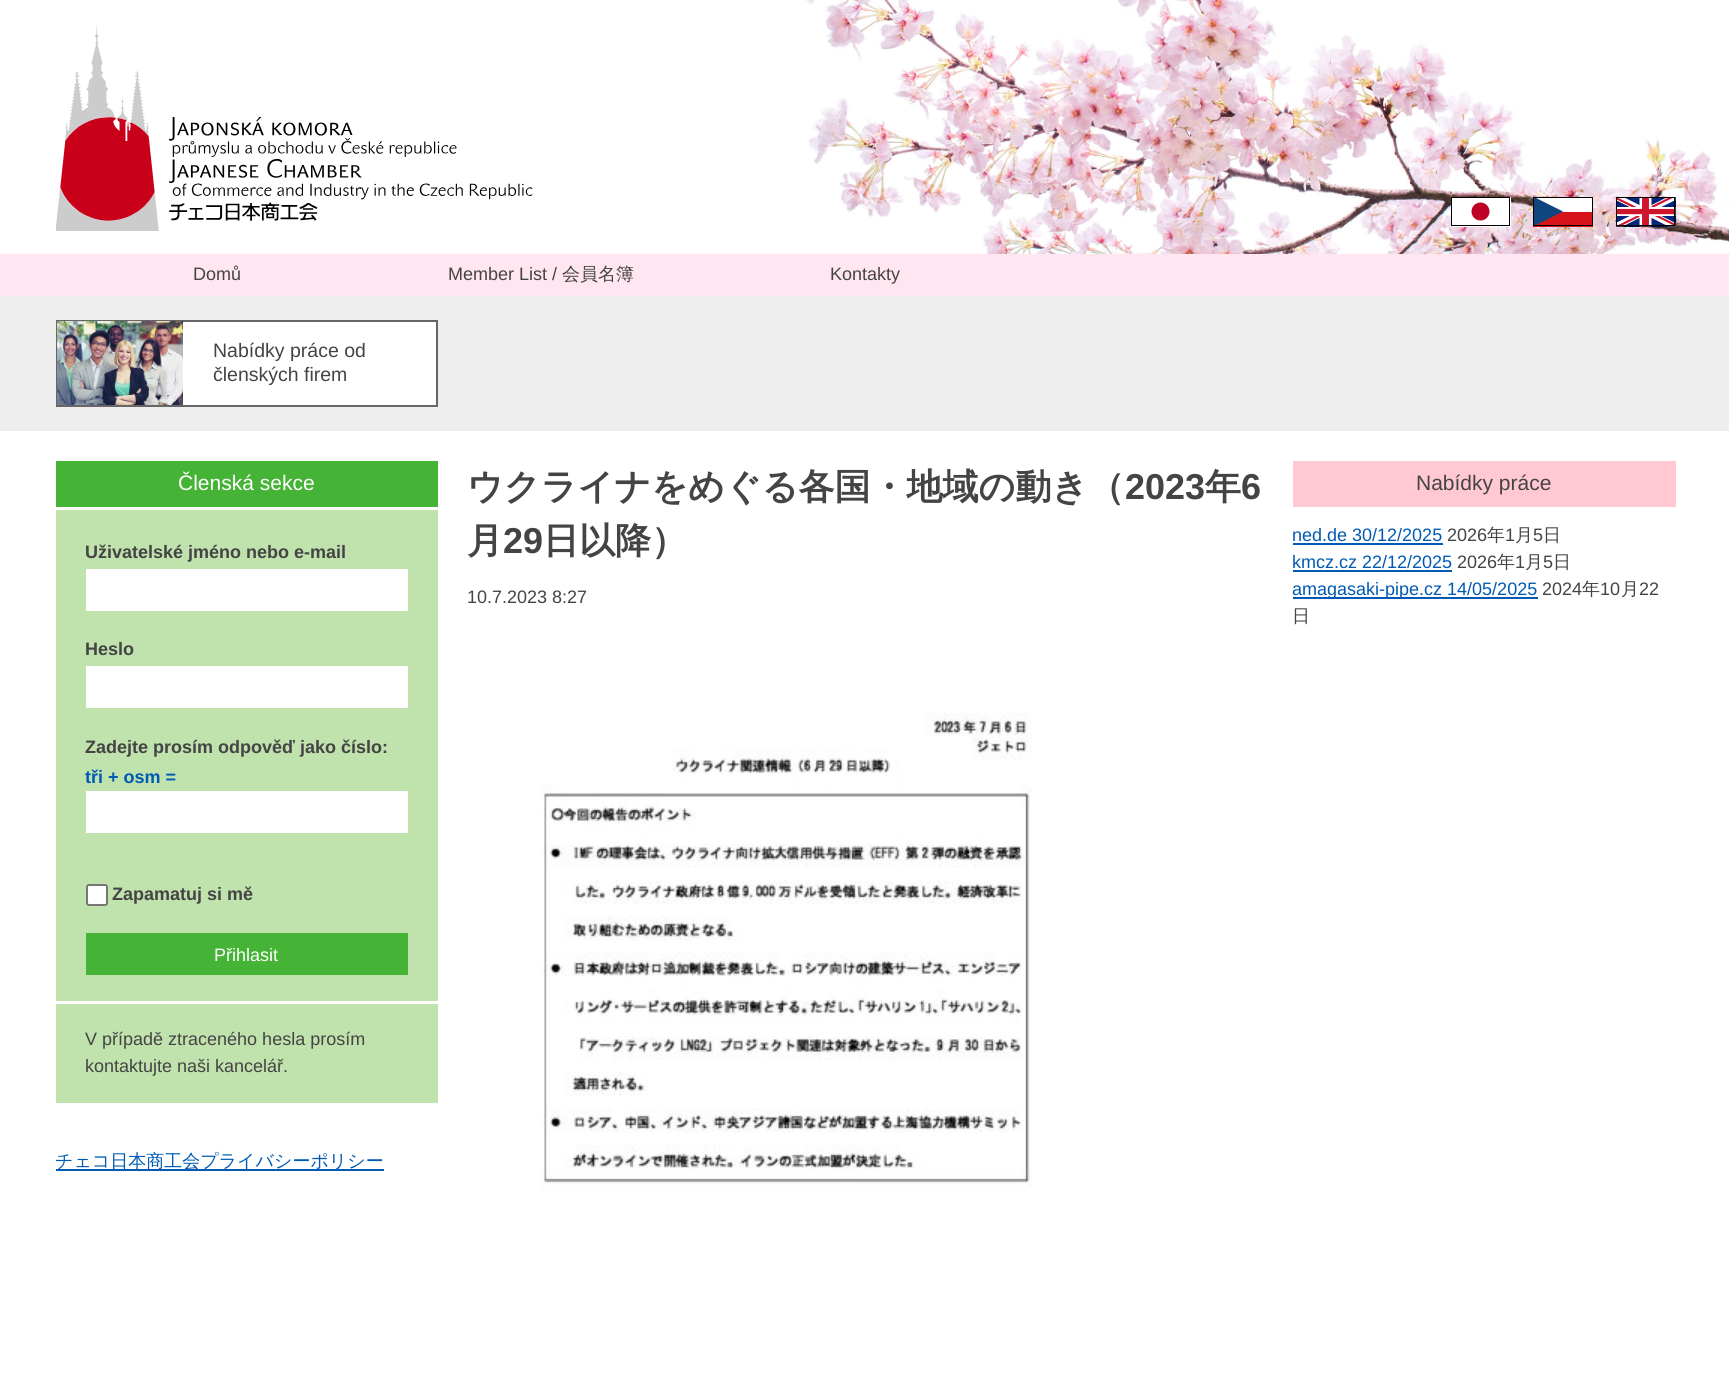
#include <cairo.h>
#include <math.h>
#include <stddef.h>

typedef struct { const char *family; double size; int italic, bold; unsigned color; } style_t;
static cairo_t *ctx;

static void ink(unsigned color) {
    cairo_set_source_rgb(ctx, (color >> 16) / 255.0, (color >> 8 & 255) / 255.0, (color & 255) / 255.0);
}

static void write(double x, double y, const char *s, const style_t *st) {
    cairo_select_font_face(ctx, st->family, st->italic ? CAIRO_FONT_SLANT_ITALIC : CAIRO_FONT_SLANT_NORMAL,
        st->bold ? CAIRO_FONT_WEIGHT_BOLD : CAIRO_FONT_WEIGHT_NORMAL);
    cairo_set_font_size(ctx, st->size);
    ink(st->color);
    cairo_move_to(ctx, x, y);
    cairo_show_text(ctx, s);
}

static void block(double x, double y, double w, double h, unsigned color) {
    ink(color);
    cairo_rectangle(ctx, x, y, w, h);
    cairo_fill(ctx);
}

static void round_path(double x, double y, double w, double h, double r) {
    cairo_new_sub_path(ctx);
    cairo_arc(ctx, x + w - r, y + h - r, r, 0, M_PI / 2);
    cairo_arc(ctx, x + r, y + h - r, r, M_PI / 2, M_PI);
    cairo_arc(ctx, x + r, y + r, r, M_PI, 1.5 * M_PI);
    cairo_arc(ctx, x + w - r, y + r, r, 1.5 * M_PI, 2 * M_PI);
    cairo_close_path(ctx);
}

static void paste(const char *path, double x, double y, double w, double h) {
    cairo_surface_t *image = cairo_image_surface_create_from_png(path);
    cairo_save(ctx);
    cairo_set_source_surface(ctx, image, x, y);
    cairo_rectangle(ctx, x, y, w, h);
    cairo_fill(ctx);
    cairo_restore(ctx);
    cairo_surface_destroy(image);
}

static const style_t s1 = {"Liberation Sans", 18, 0, 0, 0x444444};
static const style_t s2 = {"WenQuanYi Zen Hei Medium", 18, 0, 0, 0x444444};
static const style_t s3 = {"Liberation Sans", 19.5, 0, 0, 0x444444};
static const style_t s4 = {"Liberation Sans", 21, 0, 0, 0xffffff};
static const style_t s5 = {"Liberation Sans", 18, 0, 1, 0x444444};
static const style_t s6 = {"Liberation Sans", 18, 0, 1, 0x005ab4};
static const style_t s7 = {"Liberation Sans", 18, 0, 0, 0xffffff};
static const style_t s8 = {"WenQuanYi Zen Hei Medium", 18, 0, 0, 0x005ab4};
static const style_t s9 = {"WenQuanYi Zen Hei", 36, 0, 1, 0x444444};
static const style_t s10 = {"Liberation Sans", 36, 0, 1, 0x444444};
static const style_t s11 = {"Liberation Sans", 21, 0, 0, 0x444444};
static const style_t s12 = {"Liberation Sans", 18, 0, 0, 0x005ab4};

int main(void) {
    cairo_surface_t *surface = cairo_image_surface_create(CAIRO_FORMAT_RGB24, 1729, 1391);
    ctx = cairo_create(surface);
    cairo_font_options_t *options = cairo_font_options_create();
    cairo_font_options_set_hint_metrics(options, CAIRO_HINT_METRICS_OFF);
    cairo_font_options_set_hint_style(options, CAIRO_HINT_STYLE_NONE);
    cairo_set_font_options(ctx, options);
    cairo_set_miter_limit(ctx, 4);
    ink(0xffffff);
    cairo_paint(ctx);
    paste("pic1.png", 806, 0, 923, 254);
    paste("pic2.png", 56, 25, 477, 206);
    block(1451, 197, 60, 30, 0xffffff);
    ink(0xbe0026);
    cairo_arc(ctx, 1480.5, 211.5, 9, 0, 2 * M_PI);
    cairo_fill(ctx);
    cairo_save(ctx);
    cairo_rectangle(ctx, 1451, 197, 60, 30);
    cairo_clip(ctx);
    ink(0x000000);
    cairo_new_path(ctx);
    cairo_move_to(ctx, 1509, 198);
    cairo_line_to(ctx, 1509, 225);
    cairo_line_to(ctx, 1452, 225);
    cairo_line_to(ctx, 1452, 198);
    cairo_line_to(ctx, 1509, 198);
    cairo_move_to(ctx, 1510, 196);
    cairo_line_to(ctx, 1450, 196);
    cairo_line_to(ctx, 1450, 226);
    cairo_line_to(ctx, 1510, 226);
    cairo_close_path(ctx);
    cairo_fill(ctx);
    cairo_restore(ctx);
    block(1536, 198, 56, 14, 0xffffff);
    block(1533, 212, 60, 15, 0xd7141a);
    ink(0x11457e);
    cairo_new_path(ctx);
    cairo_move_to(ctx, 1533, 226.5);
    cairo_line_to(ctx, 1533, 196.5);
    cairo_line_to(ctx, 1563, 211.5);
    cairo_close_path(ctx);
    cairo_fill(ctx);
    cairo_save(ctx);
    cairo_rectangle(ctx, 1533, 197, 60, 30);
    cairo_clip(ctx);
    ink(0x000000);
    cairo_new_path(ctx);
    cairo_move_to(ctx, 1592, 198);
    cairo_line_to(ctx, 1592, 225);
    cairo_line_to(ctx, 1534, 225);
    cairo_line_to(ctx, 1534, 198);
    cairo_line_to(ctx, 1592, 198);
    cairo_move_to(ctx, 1593, 196);
    cairo_line_to(ctx, 1533, 196);
    cairo_line_to(ctx, 1533, 226);
    cairo_line_to(ctx, 1593, 226);
    cairo_close_path(ctx);
    cairo_fill(ctx);
    cairo_restore(ctx);
    paste("pic3.png", 1616, 197, 60, 30);
    block(0, 254, 1729, 42, 0xffe6f0);
    write(193, 280, "Domů", &s1);
    write(448, 280, "Member List /", &s1);
    write(562, 280, "会員名簿", &s2);
    write(830, 280, "Kontakty", &s1);
    block(0, 296, 1729, 135, 0xeeeeee);
    block(183, 322, 253, 83, 0xffffff);
    cairo_rectangle(ctx, 57, 321, 380, 85);
    ink(0x666666);
    cairo_stroke(ctx);
    paste("pic4.png", 57, 321, 126, 84);
    write(213, 357, "Nabídky práce od", &s3);
    write(213, 381, "členských firem", &s3);
    block(56, 461, 382, 46, 0x45b336);
    write(178, 490, "Členská sekce", &s4);
    block(56, 510, 382, 491, 0xc0e2ad);
    write(85, 558, "Uživatelské jméno nebo e-mail", &s5);
    block(86, 569, 322, 42, 0xffffff);
    write(85, 655, "Heslo", &s5);
    block(86, 666, 322, 42, 0xffffff);
    write(85, 753, "Zadejte prosím odpověď jako číslo:", &s5);
    write(85, 783, "tři + osm =", &s6);
    block(86, 791, 322, 42, 0xffffff);
    round_path(87, 885, 20, 20, 2);
    cairo_fill_preserve(ctx);
    ink(0x767676);
    cairo_stroke(ctx);
    write(112, 900, "Zapamatuj si mě", &s5);
    block(86, 933, 322, 42, 0x45b336);
    write(214, 961, "Přihlasit", &s7);
    block(56, 1004, 382, 99, 0xc0e2ad);
    write(85, 1045, "V případě ztraceného hesla prosím", &s1);
    write(85, 1072, "kontaktujte naši kancelář.", &s1);
    block(56, 1169, 328, 2, 0x005ab4);
    write(55, 1167, "チェコ日本商工会プライバシーポリシー", &s8);
    write(467, 499, "ウクライナをめぐる各国・地域の動き（", &s9);
    write(1125, 499, "2023", &s10);
    write(1205, 499, "年", &s9);
    write(1241, 499, "6", &s10);
    write(467, 553, "月", &s9);
    write(503, 553, "29", &s10);
    write(543, 553, "日以降）", &s9);
    write(467, 603, "10.7.2023 8:27", &s1);
    paste("pic5.png", 540, 712, 492, 479);
    block(1293, 461, 383, 46, 0xffc8d2);
    write(1416, 490, "Nabídky práce", &s11);
    write(1292, 541, "ned.de 30/12/2025", &s12);
    block(1293, 543, 150, 2, 0x005ab4);
    write(1447, 541, "2026", &s1);
    write(1487, 541, "年", &s2);
    write(1505, 541, "1", &s1);
    write(1515, 541, "月", &s2);
    write(1533, 541, "5", &s1);
    write(1543, 541, "日", &s2);
    write(1292, 568, "kmcz.cz 22/12/2025", &s12);
    block(1293, 570, 159, 2, 0x005ab4);
    write(1457, 568, "2026", &s1);
    write(1497, 568, "年", &s2);
    write(1515, 568, "1", &s1);
    write(1525, 568, "月", &s2);
    write(1543, 568, "5", &s1);
    write(1553, 568, "日", &s2);
    block(1293, 597, 245, 2, 0x005ab4);
    write(1292, 595, "amagasaki-pipe.cz 14/05/2025", &s12);
    write(1542, 595, "2024", &s1);
    write(1582, 595, "年", &s2);
    write(1600, 595, "10", &s1);
    write(1621, 595, "月", &s2);
    write(1639, 595, "22", &s1);
    write(1292, 622, "日", &s2);
    cairo_surface_write_to_png(surface, "screenshot.png");
    cairo_font_options_destroy(options);
    cairo_destroy(ctx);
    cairo_surface_destroy(surface);
    return 0;
}
